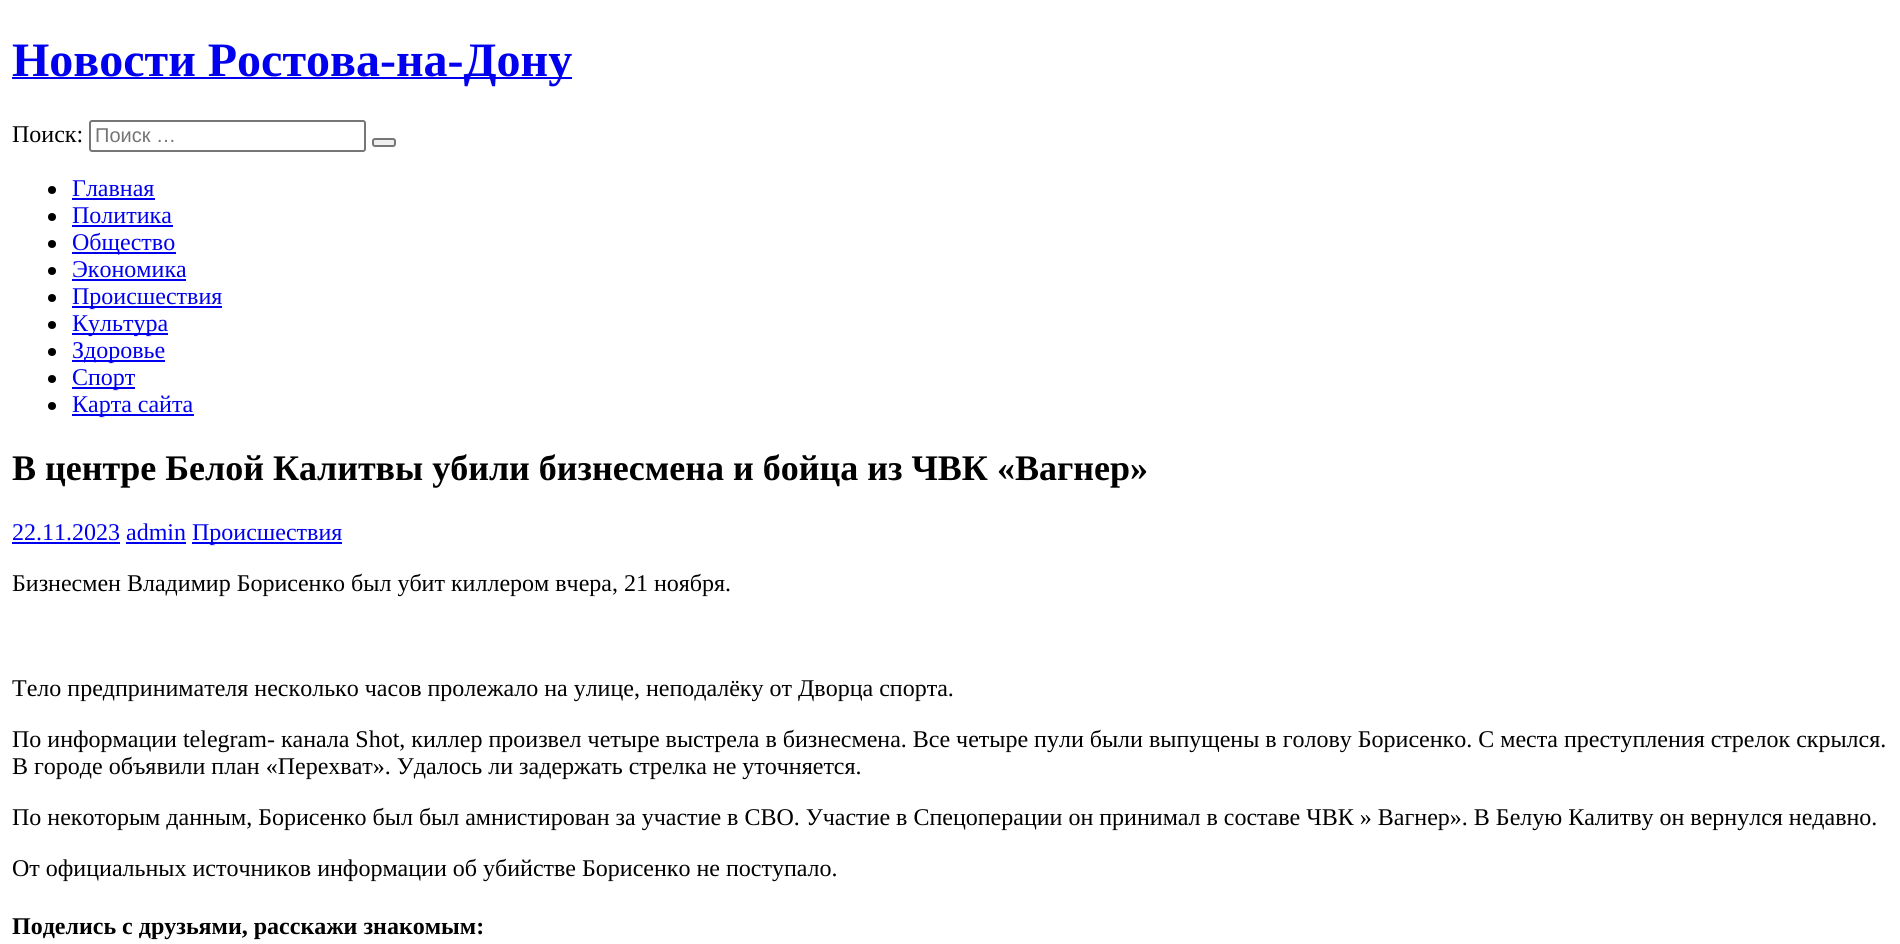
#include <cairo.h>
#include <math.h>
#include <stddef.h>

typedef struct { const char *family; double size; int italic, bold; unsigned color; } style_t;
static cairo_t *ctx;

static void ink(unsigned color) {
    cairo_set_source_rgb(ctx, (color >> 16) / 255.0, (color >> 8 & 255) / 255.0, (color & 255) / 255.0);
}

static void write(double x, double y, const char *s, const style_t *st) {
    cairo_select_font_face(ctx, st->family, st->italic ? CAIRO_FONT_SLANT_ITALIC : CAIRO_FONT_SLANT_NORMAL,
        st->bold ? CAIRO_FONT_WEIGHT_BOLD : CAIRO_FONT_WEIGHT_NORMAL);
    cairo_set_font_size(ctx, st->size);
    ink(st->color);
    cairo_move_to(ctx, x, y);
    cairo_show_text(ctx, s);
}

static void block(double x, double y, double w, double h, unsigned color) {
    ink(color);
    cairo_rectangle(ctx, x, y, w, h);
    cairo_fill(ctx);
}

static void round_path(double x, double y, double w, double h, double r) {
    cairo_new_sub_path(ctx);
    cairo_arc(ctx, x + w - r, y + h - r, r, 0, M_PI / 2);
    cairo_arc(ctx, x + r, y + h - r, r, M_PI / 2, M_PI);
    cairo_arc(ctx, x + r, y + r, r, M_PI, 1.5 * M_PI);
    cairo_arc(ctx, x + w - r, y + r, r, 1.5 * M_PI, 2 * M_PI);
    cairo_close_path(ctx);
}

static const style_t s1 = {"Liberation Serif", 48, 0, 1, 0x0000ee};
static const style_t s2 = {"Liberation Serif", 24, 0, 0, 0x000000};
static const style_t s3 = {"Liberation Sans", 20, 0, 0, 0x757575};
static const style_t s4 = {"Liberation Serif", 24, 0, 0, 0x0000ee};
static const style_t s5 = {"Liberation Serif", 36, 0, 1, 0x000000};
static const style_t s6 = {"Liberation Serif", 24, 0, 1, 0x000000};

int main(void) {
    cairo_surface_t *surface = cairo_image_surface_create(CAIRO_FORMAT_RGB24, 1900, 944);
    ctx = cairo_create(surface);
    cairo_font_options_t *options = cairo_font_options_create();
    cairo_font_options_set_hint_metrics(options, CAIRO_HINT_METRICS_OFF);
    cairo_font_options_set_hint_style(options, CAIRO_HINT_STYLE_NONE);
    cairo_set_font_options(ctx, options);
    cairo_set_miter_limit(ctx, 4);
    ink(0xffffff);
    cairo_paint(ctx);
    block(12, 77, 560, 2, 0x0000ee);
    write(12, 76, "Новости Ростова-на-Дону", &s1);
    write(12, 142, "Поиск:", &s2);
    round_path(90, 121, 275, 30, 2);
    ink(0x767676);
    cairo_stroke(ctx);
    write(95, 142, "Поиск …", &s3);
    ink(0xefefef);
    round_path(373, 139, 22, 7, 2);
    cairo_fill_preserve(ctx);
    ink(0x767676);
    cairo_stroke(ctx);
    ink(0x000000);
    cairo_arc(ctx, 52, 190, 4, 0, 2 * M_PI);
    cairo_fill(ctx);
    write(72, 196, "Главная", &s4);
    block(72, 198, 83, 2, 0x0000ee);
    ink(0x000000);
    cairo_new_path(ctx);
    cairo_arc(ctx, 52, 217, 4, 0, 2 * M_PI);
    cairo_fill(ctx);
    write(72, 223, "Политика", &s4);
    block(72, 225, 101, 2, 0x0000ee);
    ink(0x000000);
    cairo_new_path(ctx);
    cairo_arc(ctx, 52, 244, 4, 0, 2 * M_PI);
    cairo_fill(ctx);
    block(72, 252, 104, 2, 0x0000ee);
    write(72, 250, "Общество", &s4);
    ink(0x000000);
    cairo_new_path(ctx);
    cairo_arc(ctx, 52, 271, 4, 0, 2 * M_PI);
    cairo_fill(ctx);
    write(72, 277, "Экономика", &s4);
    block(72, 279, 114, 2, 0x0000ee);
    ink(0x000000);
    cairo_new_path(ctx);
    cairo_arc(ctx, 52, 298, 4, 0, 2 * M_PI);
    cairo_fill(ctx);
    block(72, 306, 150, 2, 0x0000ee);
    write(72, 304, "Происшествия", &s4);
    ink(0x000000);
    cairo_new_path(ctx);
    cairo_arc(ctx, 52, 325, 4, 0, 2 * M_PI);
    cairo_fill(ctx);
    block(72, 333, 96, 2, 0x0000ee);
    write(72, 331, "Культура", &s4);
    ink(0x000000);
    cairo_new_path(ctx);
    cairo_arc(ctx, 52, 352, 4, 0, 2 * M_PI);
    cairo_fill(ctx);
    block(72, 360, 93, 2, 0x0000ee);
    write(72, 358, "Здоровье", &s4);
    ink(0x000000);
    cairo_new_path(ctx);
    cairo_arc(ctx, 52, 379, 4, 0, 2 * M_PI);
    cairo_fill(ctx);
    block(72, 387, 63, 2, 0x0000ee);
    write(72, 385, "Спорт", &s4);
    ink(0x000000);
    cairo_new_path(ctx);
    cairo_arc(ctx, 52, 406, 4, 0, 2 * M_PI);
    cairo_fill(ctx);
    block(72, 414, 122, 2, 0x0000ee);
    write(72, 412, "Карта сайта", &s4);
    write(12, 480, "В центре Белой Калитвы убили бизнесмена и бойца из ЧВК «Вагнер»", &s5);
    write(12, 540, "22.11.2023 admin", &s4);
    block(12, 542, 108, 2, 0x0000ee);
    block(192, 542, 150, 2, 0x0000ee);
    write(192, 540, "Происшествия", &s4);
    block(126, 542, 60, 2, 0x0000ee);
    write(12, 591, "Бизнесмен Владимир Борисенко был убит киллером вчера, 21 ноября.", &s2);
    write(12, 696, "Тело предпринимателя несколько часов пролежало на улице, неподалёку от Дворца спорта.", &s2);
    write(12, 747, "По информации telegram- канала Shot, киллер произвел четыре выстрела в бизнесмена. Все четыре пули были выпущены в голову Борисенко. С места преступления стрелок скрылся.", &s2);
    write(12, 774, "В городе объявили план «Перехват». Удалось ли задержать стрелка не уточняется.", &s2);
    write(12, 825, "По некоторым данным, Борисенко был был амнистирован за участие в СВО. Участие в Спецоперации он принимал в составе ЧВК » Вагнер». В Белую Калитву он вернулся недавно.", &s2);
    write(12, 876, "От официальных источников информации об убийстве Борисенко не поступало.", &s2);
    write(12, 934, "Поделись с друзьями, расскажи знакомым:", &s6);
    cairo_surface_write_to_png(surface, "screenshot.png");
    cairo_font_options_destroy(options);
    cairo_destroy(ctx);
    cairo_surface_destroy(surface);
    return 0;
}
